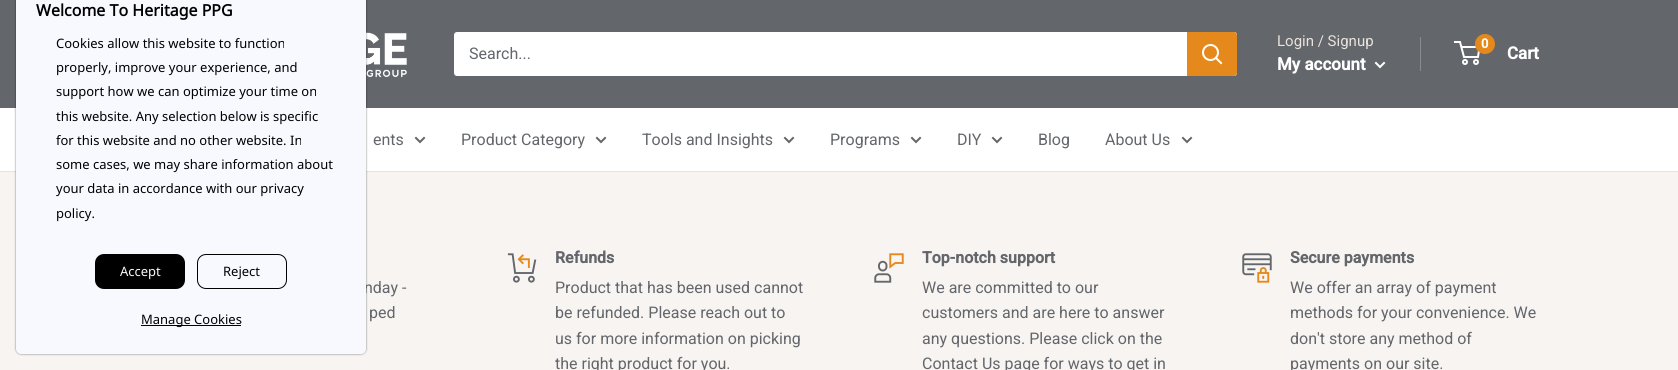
#include <cairo.h>
#include <math.h>
#include <stddef.h>

typedef struct { const char *family; double size; int italic, bold; unsigned color; } style_t;
static cairo_t *ctx;

static void ink(unsigned color) {
    cairo_set_source_rgb(ctx, (color >> 16) / 255.0, (color >> 8 & 255) / 255.0, (color & 255) / 255.0);
}

static void write(double x, double y, const char *s, const style_t *st) {
    cairo_select_font_face(ctx, st->family, st->italic ? CAIRO_FONT_SLANT_ITALIC : CAIRO_FONT_SLANT_NORMAL,
        st->bold ? CAIRO_FONT_WEIGHT_BOLD : CAIRO_FONT_WEIGHT_NORMAL);
    cairo_set_font_size(ctx, st->size);
    ink(st->color);
    cairo_move_to(ctx, x, y);
    cairo_show_text(ctx, s);
}

static void block(double x, double y, double w, double h, unsigned color) {
    ink(color);
    cairo_rectangle(ctx, x, y, w, h);
    cairo_fill(ctx);
}

static void round_path(double x, double y, double w, double h, double r) {
    cairo_new_sub_path(ctx);
    cairo_arc(ctx, x + w - r, y + h - r, r, 0, M_PI / 2);
    cairo_arc(ctx, x + r, y + h - r, r, M_PI / 2, M_PI);
    cairo_arc(ctx, x + r, y + r, r, M_PI, 1.5 * M_PI);
    cairo_arc(ctx, x + w - r, y + r, r, 1.5 * M_PI, 2 * M_PI);
    cairo_close_path(ctx);
}

static void blur_box(double x, double y, double w, double h, double r, double blur, double alpha) {
    cairo_push_group_with_content(ctx, CAIRO_CONTENT_ALPHA);
    cairo_set_operator(ctx, CAIRO_OPERATOR_SOURCE);
    for (int i = 15; i >= -15 && fmin(w, h) + blur * i / 3 > 0; i -= 2) {
        double e = blur * i / 6;
        cairo_set_source_rgba(ctx, 0, 0, 0, alpha * erfc((i - 1) / 8.5) / 2);
        round_path(x - e, y - e, w + 2 * e, h + 2 * e, fmax(0, fmin(r + e + blur * .6, fmin(w, h) / 2 + e)));
        cairo_fill(ctx);
    }
    cairo_pattern_t *soft = cairo_pop_group(ctx);
    cairo_mask(ctx, soft);
    cairo_pattern_destroy(soft);
}

static void paste(const char *path, double x, double y, double w, double h) {
    cairo_surface_t *image = cairo_image_surface_create_from_png(path);
    cairo_save(ctx);
    cairo_set_source_surface(ctx, image, x, y);
    cairo_rectangle(ctx, x, y, w, h);
    cairo_fill(ctx);
    cairo_restore(ctx);
    cairo_surface_destroy(image);
}

static const style_t s1 = {"Roboto", 16, 0, 0, 0x63666a};
static const style_t s2 = {"Noto Sans", 16, 0, 1, 0x000000};
static const style_t s3 = {"Noto Sans", 13, 0, 0, 0x000000};
static const style_t s4 = {"Noto Sans", 13, 0, 0, 0xf8f8f8};
static const style_t s5 = {"Roboto", 15, 0, 0, 0xe9e2dd};
static const style_t s6 = {"Roboto", 17, 0, 1, 0xffffff};
static const style_t s7 = {"Roboto", 13, 0, 1, 0xffffff};
static const style_t s8 = {"Roboto", 16, 0, 1, 0x63666a};

int main(void) {
    cairo_surface_t *surface = cairo_image_surface_create(CAIRO_FORMAT_RGB24, 1678, 370);
    ctx = cairo_create(surface);
    cairo_font_options_t *options = cairo_font_options_create();
    cairo_font_options_set_hint_metrics(options, CAIRO_HINT_METRICS_OFF);
    cairo_font_options_set_hint_style(options, CAIRO_HINT_STYLE_NONE);
    cairo_set_font_options(ctx, options);
    cairo_set_miter_limit(ctx, 4);
    ink(0xf7f4f2);
    cairo_paint(ctx);
    block(0, 0, 1678, 108, 0x63666a);
    paste("pic1.png", 366, 32, 41, 46);
    block(0, 108, 1678, 63, 0xffffff);
    block(0, 171, 1678, 1, 0xe7e2de);
    ink(0x000000);
    blur_box(16, -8, 350, 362, 5, 1, 0.5);
    write(364, 293, "nday -", &s1);
    ink(0xf8f8ff);
    round_path(16, -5, 350, 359, 5);
    cairo_fill(ctx);
    write(36, 16, "Welcome To Heritage PPG", &s2);
    write(56, 48, "Cookies allow this website to function", &s3);
    write(56, 72, "properly, improve your experience, and", &s3);
    write(56, 96, "support how we can optimize your time on", &s3);
    write(56, 121, "this website. Any selection below is specific", &s3);
    write(56, 145, "for this website and no other website. In", &s3);
    write(56, 169, "some cases, we may share information about", &s3);
    write(56, 193, "your data in accordance with our privacy", &s3);
    write(56, 218, "policy.", &s3);
    round_path(95, 254, 90, 35, 9);
    cairo_fill(ctx);
    write(120, 276, "Accept", &s4);
    round_path(197.5, 254.5, 89, 34, 8.5);
    ink(0x000000);
    cairo_set_line_width(ctx, 1);
    cairo_stroke(ctx);
    write(223, 276, "Reject", &s3);
    block(141, 325, 100, 1, 0x000000);
    write(141, 324, "Manage Cookies", &s3);
    ink(0xffffff);
    round_path(454, 32, 783, 44, 3);
    cairo_fill(ctx);
    write(469, 59, "Search...", &s1);
    ink(0xe5891c);
    cairo_new_path(ctx);
    cairo_move_to(ctx, 1187, 32);
    cairo_line_to(ctx, 1234, 32);
    cairo_curve_to(ctx, 1235.5, 32, 1237, 33.5, 1237, 35);
    cairo_line_to(ctx, 1237, 73);
    cairo_curve_to(ctx, 1237, 74.5, 1235.5, 76, 1234, 76);
    cairo_line_to(ctx, 1187, 76);
    cairo_close_path(ctx);
    cairo_fill(ctx);
    cairo_new_path(ctx);
    cairo_move_to(ctx, 1221, 63);
    cairo_line_to(ctx, 1216, 58);
    ink(0xffffff);
    cairo_set_line_width(ctx, 2);
    cairo_set_line_cap(ctx, CAIRO_LINE_CAP_SQUARE);
    cairo_stroke(ctx);
    cairo_arc(ctx, 1210.5, 52.5, 7.5, 0, 2 * M_PI);
    cairo_set_line_cap(ctx, CAIRO_LINE_CAP_BUTT);
    cairo_stroke(ctx);
    write(1277, 46, "Login / Signup", &s5);
    block(1420, 37, 1, 34, 0x8b8b8d);
    write(1277, 70, "My account", &s6);
    cairo_new_path(ctx);
    cairo_move_to(ctx, 1384, 63);
    cairo_line_to(ctx, 1380, 67);
    cairo_line_to(ctx, 1376, 63);
    cairo_set_line_cap(ctx, CAIRO_LINE_CAP_SQUARE);
    cairo_stroke(ctx);
    cairo_arc(ctx, 1465, 62, 2, 0, 2 * M_PI);
    cairo_set_line_cap(ctx, CAIRO_LINE_CAP_BUTT);
    cairo_stroke(ctx);
    cairo_arc(ctx, 1476, 62, 2, 0, 2 * M_PI);
    cairo_stroke(ctx);
    cairo_new_path(ctx);
    cairo_move_to(ctx, 1461.5, 47);
    cairo_line_to(ctx, 1479.5, 47);
    cairo_line_to(ctx, 1478, 57);
    cairo_line_to(ctx, 1464, 57);
    cairo_line_to(ctx, 1460, 42);
    cairo_line_to(ctx, 1454, 42);
    cairo_stroke(ctx);
    ink(0xe5891c);
    cairo_arc(ctx, 1485, 44, 10, 0, 2 * M_PI);
    cairo_fill(ctx);
    write(1481, 48, "0", &s7);
    write(1507, 59, "Cart", &s6);
    write(373, 145, "ents", &s1);
    cairo_new_path(ctx);
    cairo_move_to(ctx, 424, 138);
    cairo_line_to(ctx, 420, 142);
    cairo_line_to(ctx, 416, 138);
    cairo_set_line_cap(ctx, CAIRO_LINE_CAP_SQUARE);
    cairo_stroke(ctx);
    write(461, 145, "Product Category", &s1);
    cairo_new_path(ctx);
    cairo_move_to(ctx, 605, 138);
    cairo_line_to(ctx, 601, 142);
    cairo_line_to(ctx, 597, 138);
    cairo_stroke(ctx);
    write(642, 145, "Tools and Insights", &s1);
    cairo_new_path(ctx);
    cairo_move_to(ctx, 793, 138);
    cairo_line_to(ctx, 789, 142);
    cairo_line_to(ctx, 785, 138);
    cairo_stroke(ctx);
    write(830, 145, "Programs", &s1);
    cairo_new_path(ctx);
    cairo_move_to(ctx, 920, 138);
    cairo_line_to(ctx, 916, 142);
    cairo_line_to(ctx, 912, 138);
    cairo_stroke(ctx);
    write(957, 145, "DIY", &s1);
    cairo_new_path(ctx);
    cairo_move_to(ctx, 1001, 138);
    cairo_line_to(ctx, 997, 142);
    cairo_line_to(ctx, 993, 138);
    cairo_stroke(ctx);
    write(1038, 145, "Blog", &s1);
    write(1105, 145, "About Us", &s1);
    cairo_new_path(ctx);
    cairo_move_to(ctx, 1191, 138);
    cairo_line_to(ctx, 1187, 142);
    cairo_line_to(ctx, 1183, 138);
    cairo_stroke(ctx);
    write(369, 318, "ped", &s1);
    paste("pic2.png", 507, 253, 30, 30);
    write(555, 263, "Refunds", &s8);
    write(555, 293, "Product that has been used cannot", &s1);
    write(555, 318, "be refunded. Please reach out to", &s1);
    write(555, 344, "us for more information on picking", &s1);
    write(555, 369, "the right product for you.", &s1);
    paste("pic3.png", 874, 253, 30, 30);
    write(922, 263, "Top-notch support", &s8);
    write(922, 293, "We are committed to our", &s1);
    write(922, 318, "customers and are here to answer", &s1);
    write(922, 344, "any questions. Please click on the", &s1);
    write(922, 369, "Contact Us page for ways to get in", &s1);
    paste("pic4.png", 1242, 253, 30, 30);
    write(1290, 263, "Secure payments", &s8);
    write(1290, 293, "We offer an array of payment", &s1);
    write(1290, 318, "methods for your convenience. We", &s1);
    write(1290, 344, "don't store any method of", &s1);
    write(1290, 369, "payments on our site.", &s1);
    cairo_surface_write_to_png(surface, "screenshot.png");
    cairo_font_options_destroy(options);
    cairo_destroy(ctx);
    cairo_surface_destroy(surface);
    return 0;
}
